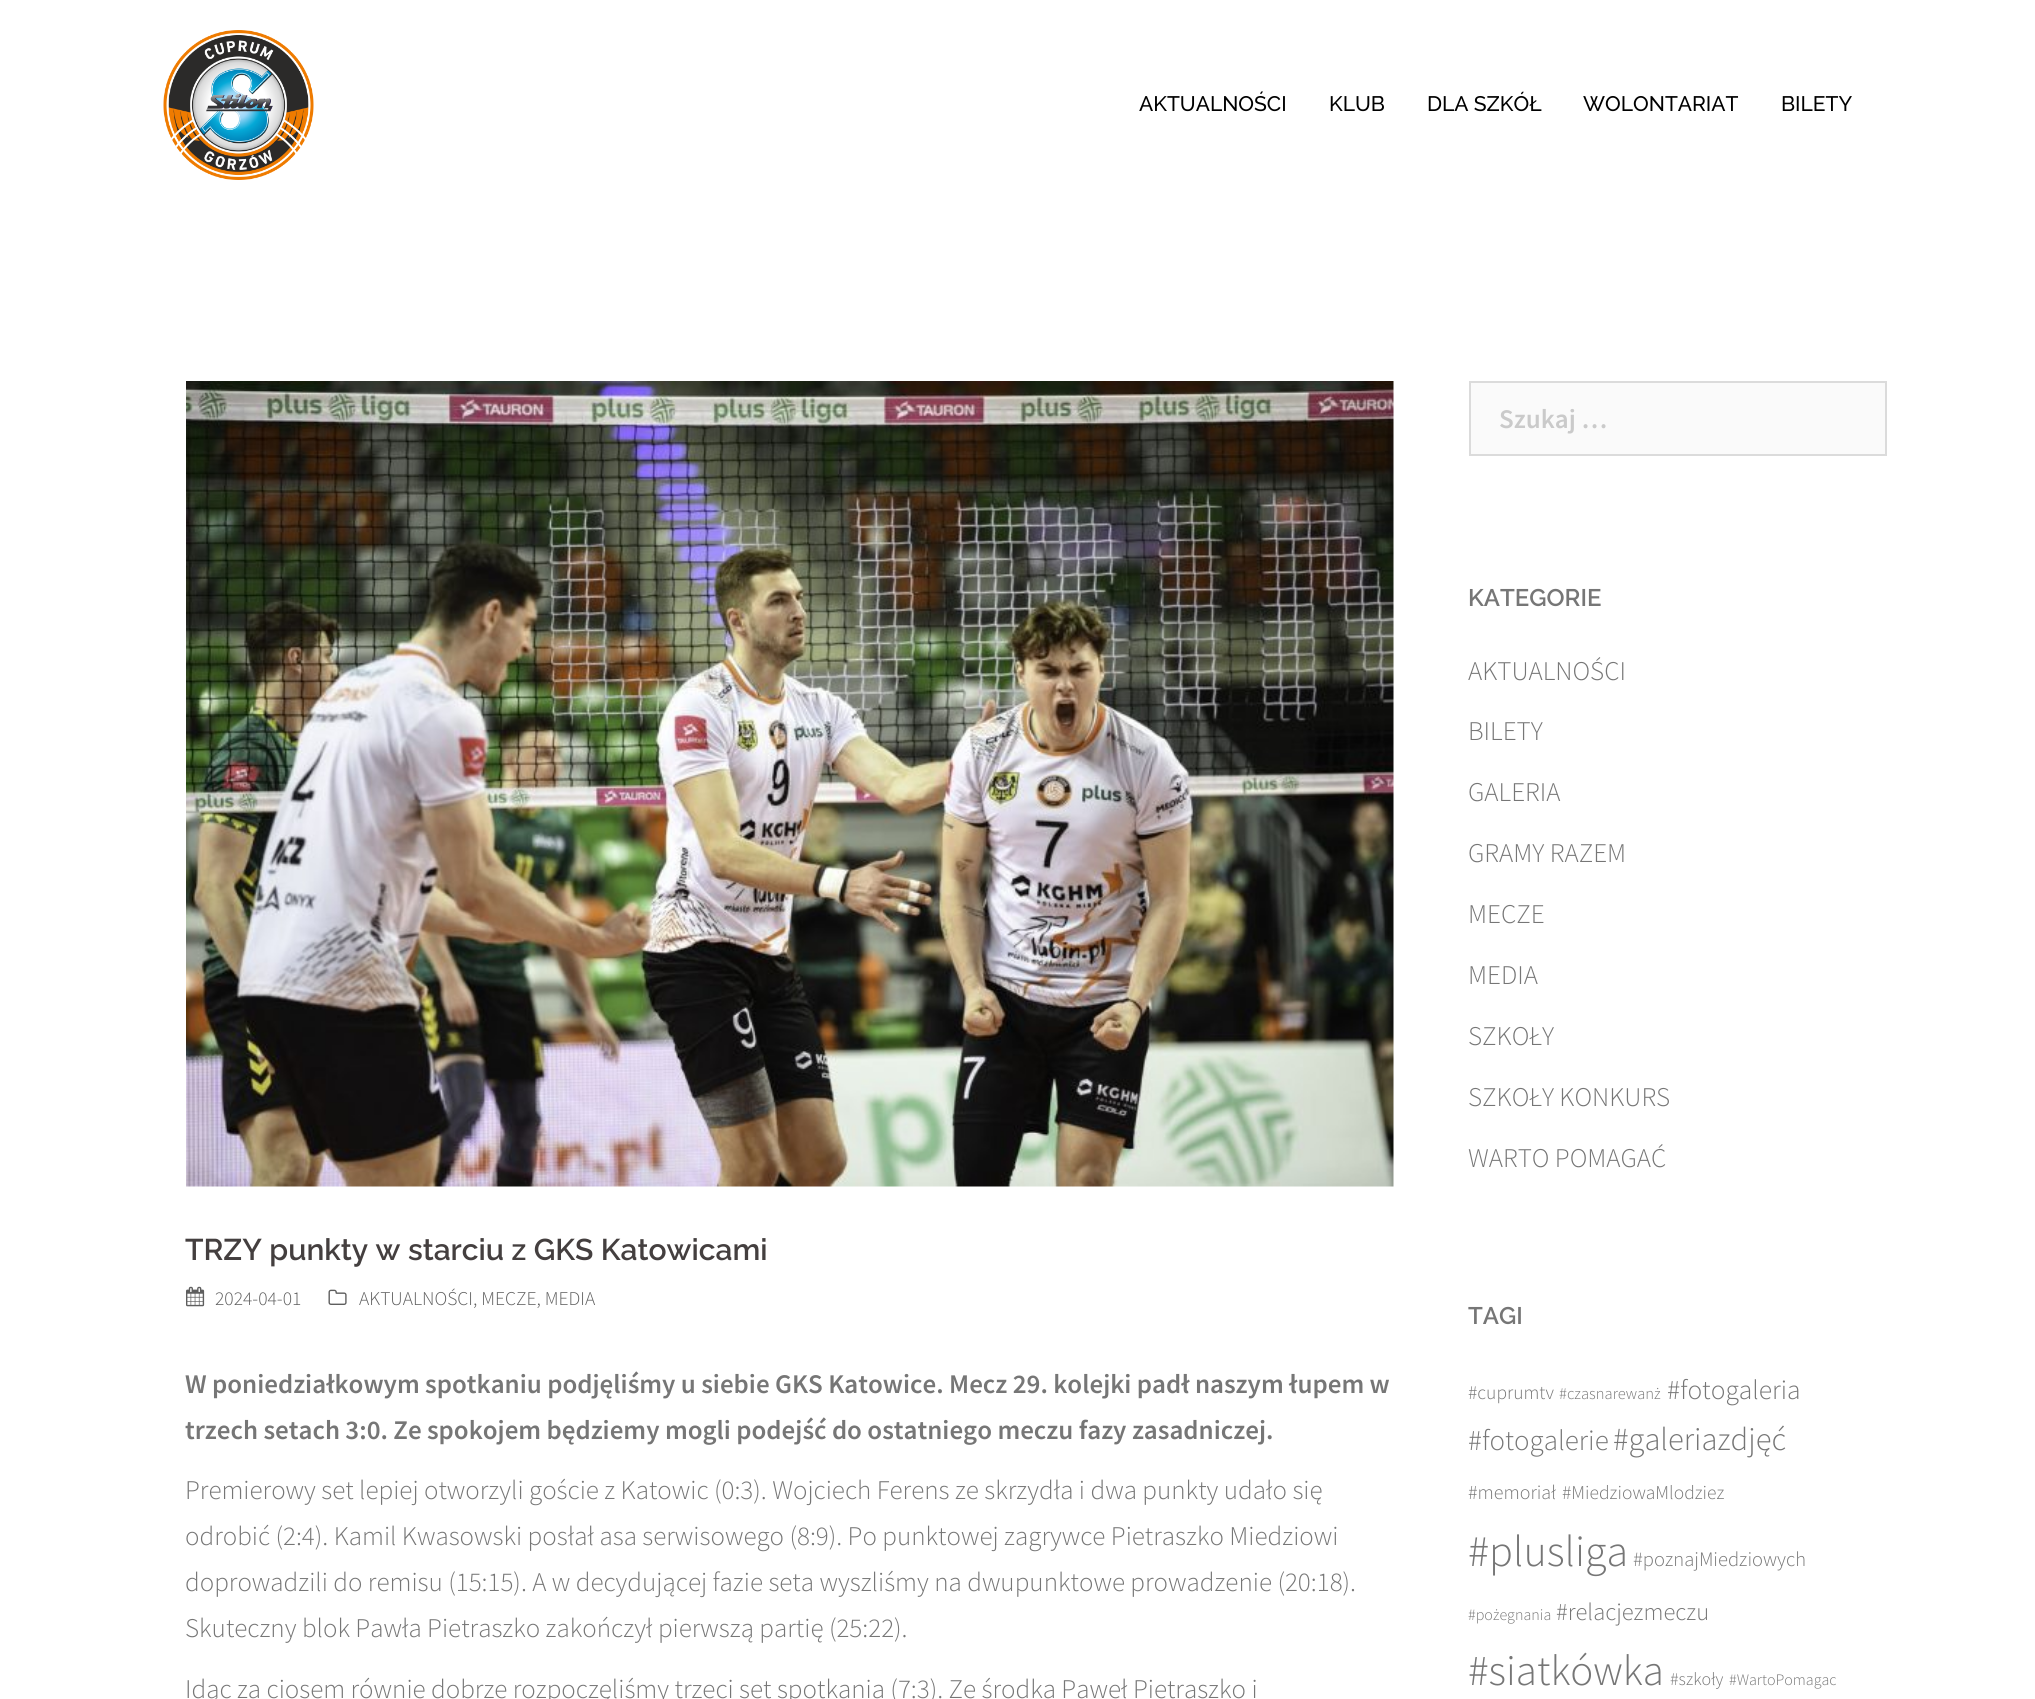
#include <cairo.h>
#include <math.h>
#include <stddef.h>

typedef struct { const char *family; double size; int italic, bold; unsigned color; } style_t;
static cairo_t *ctx;

static void ink(unsigned color) {
    cairo_set_source_rgb(ctx, (color >> 16) / 255.0, (color >> 8 & 255) / 255.0, (color & 255) / 255.0);
}

static void write(double x, double y, const char *s, const style_t *st) {
    cairo_select_font_face(ctx, st->family, st->italic ? CAIRO_FONT_SLANT_ITALIC : CAIRO_FONT_SLANT_NORMAL,
        st->bold ? CAIRO_FONT_WEIGHT_BOLD : CAIRO_FONT_WEIGHT_NORMAL);
    cairo_set_font_size(ctx, st->size);
    ink(st->color);
    cairo_move_to(ctx, x, y);
    cairo_show_text(ctx, s);
}

static void paste(const char *path, double x, double y, double w, double h) {
    cairo_surface_t *image = cairo_image_surface_create_from_png(path);
    cairo_save(ctx);
    cairo_set_source_surface(ctx, image, x, y);
    cairo_rectangle(ctx, x, y, w, h);
    cairo_fill(ctx);
    cairo_restore(ctx);
    cairo_surface_destroy(image);
}

static const style_t s1 = {"Raleway Medium", 21, 0, 0, 0x000000};
static const style_t s2 = {"Raleway SemiBold", 30, 0, 0, 0x443f3f};
static const style_t s3 = {"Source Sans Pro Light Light", 19.5, 0, 0, 0x5e5e5e};
static const style_t s4 = {"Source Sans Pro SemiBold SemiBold", 27, 0, 0, 0x767676};
static const style_t s5 = {"Source Sans Pro Light Light", 27, 0, 0, 0x767676};
static const style_t s6 = {"Source Sans Pro SemiBold SemiBold", 27, 0, 0, 0xcacaca};
static const style_t s7 = {"Raleway SemiBold", 24, 0, 0, 0x767676};
static const style_t s8 = {"Source Sans Pro Light Light", 19.5, 0, 0, 0x767676};
static const style_t s9 = {"Source Sans Pro Light Light", 16.5, 0, 0, 0x767676};
static const style_t s10 = {"Source Sans Pro Light Light", 27.5, 0, 0, 0x767676};
static const style_t s11 = {"Source Sans Pro Light Light", 29, 0, 0, 0x767676};
static const style_t s12 = {"Source Sans Pro Light Light", 32.5, 0, 0, 0x767676};
static const style_t s13 = {"Source Sans Pro Light Light", 20, 0, 0, 0x767676};
static const style_t s14 = {"Source Sans Pro Light Light", 44, 0, 0, 0x767676};
static const style_t s15 = {"Source Sans Pro Light Light", 20.5, 0, 0, 0x767676};
static const style_t s16 = {"Source Sans Pro Light Light", 16, 0, 0, 0x767676};
static const style_t s17 = {"Source Sans Pro Light Light", 24.5, 0, 0, 0x767676};
static const style_t s18 = {"Source Sans Pro Light Light", 43, 0, 0, 0x767676};
static const style_t s19 = {"Source Sans Pro Light Light", 18, 0, 0, 0x767676};

int main(void) {
    cairo_surface_t *surface = cairo_image_surface_create(CAIRO_FORMAT_RGB24, 2035, 1699);
    ctx = cairo_create(surface);
    cairo_font_options_t *options = cairo_font_options_create();
    cairo_font_options_set_hint_metrics(options, CAIRO_HINT_METRICS_OFF);
    cairo_font_options_set_hint_style(options, CAIRO_HINT_STYLE_NONE);
    cairo_set_font_options(ctx, options);
    cairo_set_miter_limit(ctx, 4);
    ink(0xffffff);
    cairo_paint(ctx);
    paste("pic1.png", 163, 30, 151, 150);
    write(1139, 111, "AKTUALNOŚCI", &s1);
    write(1329, 111, "KLUB", &s1);
    write(1427, 111, "DLA SZKÓŁ", &s1);
    write(1583, 111, "WOLONTARIAT", &s1);
    write(1781, 111, "BILETY", &s1);
    paste("pic2.png", 186, 381, 1208, 806);
    write(185, 1260, "TRZY punkty w starciu z GKS Katowicami", &s2);
    paste("pic3.png", 186, 1286, 19, 21);
    write(215, 1305, "2024-04-01", &s3);
    paste("pic4.png", 328, 1289, 19, 16);
    write(359, 1305, "AKTUALNOŚCI, MECZE, MEDIA", &s3);
    write(185, 1393, "W poniedziałkowym spotkaniu podjęliśmy u siebie GKS Katowice. Mecz 29. kolejki padł naszym łupem w", &s4);
    write(185, 1439, "trzech setach 3:0. Ze spokojem będziemy mogli podejść do ostatniego meczu fazy zasadniczej.", &s4);
    write(185, 1499, "Premierowy set lepiej otworzyli goście z Katowic (0:3). Wojciech Ferens ze skrzydła i dwa punkty udało się", &s5);
    write(185, 1545, "odrobić (2:4). Kamil Kwasowski posłał asa serwisowego (8:9). Po punktowej zagrywce Pietraszko Miedziowi", &s5);
    write(185, 1591, "doprowadzili do remisu (15:15). A w decydującej fazie seta wyszliśmy na dwupunktowe prowadzenie (20:18).", &s5);
    write(185, 1637, "Skuteczny blok Pawła Pietraszko zakończył pierwszą partię (25:22).", &s5);
    write(185, 1698, "Idąc za ciosem równie dobrze rozpoczęliśmy trzeci set spotkania (7:3). Ze środka Paweł Pietraszko i", &s5);
    ink(0xfafafa);
    cairo_rectangle(ctx, 1470, 382, 416, 73);
    cairo_fill_preserve(ctx);
    ink(0xdbdbdb);
    cairo_stroke(ctx);
    write(1499, 428, "Szukaj …", &s6);
    write(1468, 606, "KATEGORIE", &s7);
    write(1468, 680, "AKTUALNOŚCI", &s5);
    write(1468, 740, "BILETY", &s5);
    write(1468, 801, "GALERIA", &s5);
    write(1468, 862, "GRAMY RAZEM", &s5);
    write(1468, 923, "MECZE", &s5);
    write(1468, 984, "MEDIA", &s5);
    write(1468, 1045, "SZKOŁY", &s5);
    write(1468, 1106, "SZKOŁY KONKURS", &s5);
    write(1468, 1167, "WARTO POMAGAĆ", &s5);
    write(1468, 1324, "TAGI", &s7);
    write(1468, 1399, "#cuprumtv", &s8);
    write(1559, 1399, "#czasnarewanż", &s9);
    write(1667, 1399, "#fotogaleria", &s10);
    write(1468, 1450, "#fotogalerie", &s11);
    write(1613, 1450, "#galeriazdjęć", &s12);
    write(1468, 1499, "#memoriał", &s13);
    write(1562, 1499, "#MiedziowaMlodziez", &s8);
    write(1468, 1566, "#plusliga", &s14);
    write(1633, 1566, "#poznajMiedziowych", &s15);
    write(1468, 1620, "#pożegnania", &s16);
    write(1556, 1620, "#relacjezmeczu", &s17);
    write(1468, 1685, "#siatkówka", &s18);
    write(1670, 1685, "#szkoły", &s19);
    write(1729, 1685, "#WartoPomagac", &s16);
    cairo_surface_write_to_png(surface, "screenshot.png");
    cairo_font_options_destroy(options);
    cairo_destroy(ctx);
    cairo_surface_destroy(surface);
    return 0;
}
